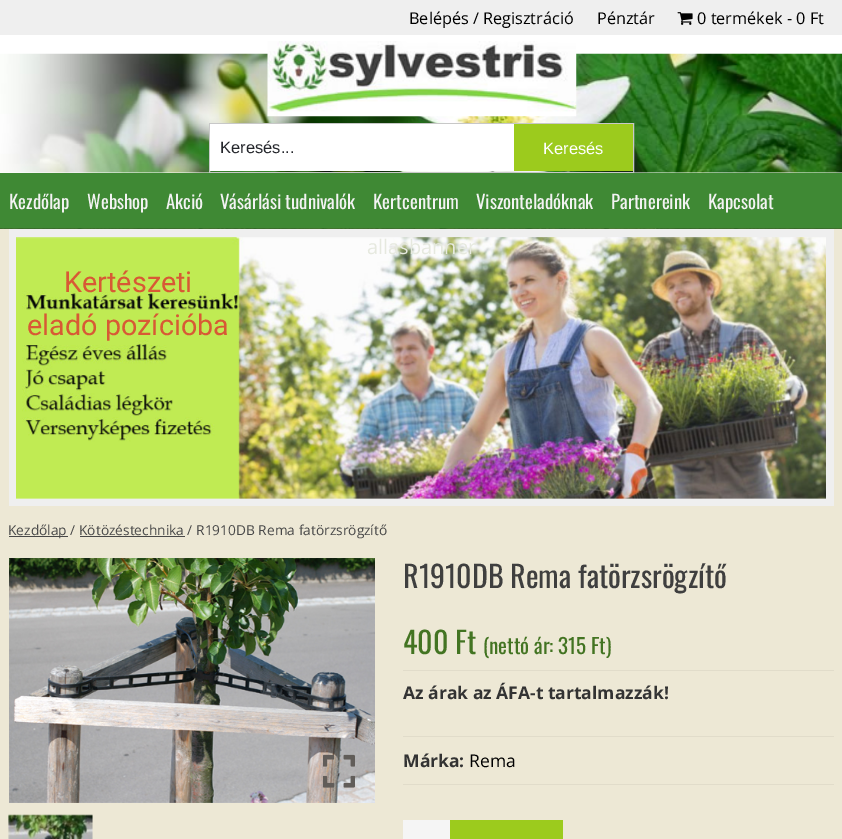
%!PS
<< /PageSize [842 839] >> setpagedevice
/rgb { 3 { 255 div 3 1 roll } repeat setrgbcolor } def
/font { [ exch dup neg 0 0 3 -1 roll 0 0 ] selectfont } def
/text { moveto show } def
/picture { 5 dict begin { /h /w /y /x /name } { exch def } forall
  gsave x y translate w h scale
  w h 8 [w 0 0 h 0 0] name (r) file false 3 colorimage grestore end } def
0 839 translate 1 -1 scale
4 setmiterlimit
255 255 255 rgb
0 0 842 839 rectfill
239 239 239 rgb
0 0 842 35 rectfill
(img_01.rgb) 677 12 16 13 picture
(img_02.rgb) 0 53 842 120 picture
(img_03.rgb) 267 41 310 76 picture
200 200 200 rgb
209.5 123.5 424 49 rectstroke
255 255 255 rgb
210 124 304 47 rectfill
156 203 29 rgb
514 124 119 47 rectfill
63 137 52 rgb
0 173 842 56 rectfill
(img_04.rgb) 0 228 842 1 picture
237 232 213 rgb
0 229 842 610 rectfill
239 239 239 rgb
9 229 825 277 rectfill
(img_05.rgb) 16 237 810 262 picture
72 72 72 rgb
9 536 59 1 rectfill
80 536 105 1 rectfill
(img_06.rgb) 9 558 366 245 picture
(img_07.rgb) 323 754 32 34 picture
(img_08.rgb) 8 814 85 25 picture
225 220 202 rgb
403 670 431 1 rectfill
403 736 431 1 rectfill
403 784 431 1 rectfill
245 245 245 rgb
403 820 47 19 rectfill
156 203 29 rgb
450 820 113 19 rectfill
/OpenSans-Regular 16.25 font
0 0 0 rgb
(Belépés / Regisztráció) 409 24 text
(Pénztár) 597 24 text
(0 termékek - 0 Ft) 697 24 text
/LiberationSans-Regular 16.5 font
36 38 43 rgb
(Keresés...) 220 153 text
255 255 255 rgb
(Keresés) 543 154 text
/Oswald-Regular 18.75 font
243 243 243 rgb
(Kezdőlap) 9 209 text
(Webshop) 87 209 text
(Akció) 166 209 text
(Vásárlási tudnivalók) 220 209 text
(Kertcentrum) 373 209 text
(Viszonteladóknak) 476 209 text
(Partnereink) 611 209 text
(Kapcsolat) 708 209 text
/OpenSans-Regular 20 font
230 233 223 rgb
(allasbanner) 367 254 text
/Roboto-Regular 28.75 font
216 89 53 rgb
(Kertészeti) 64 292 text
(eladó pozícióba) 27 335 text
/OpenSans-Regular 13.75 font
72 72 72 rgb
(Kezdőlap / Kötözéstechnika / R1910DB Rema fatörzsrögzítő) 8 535 text
/Oswald-Regular 30 font
63 63 63 rgb
(R1910DB Rema fatörzsrögzítő) 403 588 text
67 116 34 rgb
(400 Ft) 403 654 text
/Oswald-Regular 21 font
(\(nettó ár: 315 Ft\)) 483 654 text
/OpenSans-Bold 17.5 font
51 51 51 rgb
(Az árak az ÁFA-t tartalmazzák!) 403 699 text
(Márka:) 403 767 text
/OpenSans-Regular 17.5 font
0 0 0 rgb
(Rema) 469 767 text
showpage
